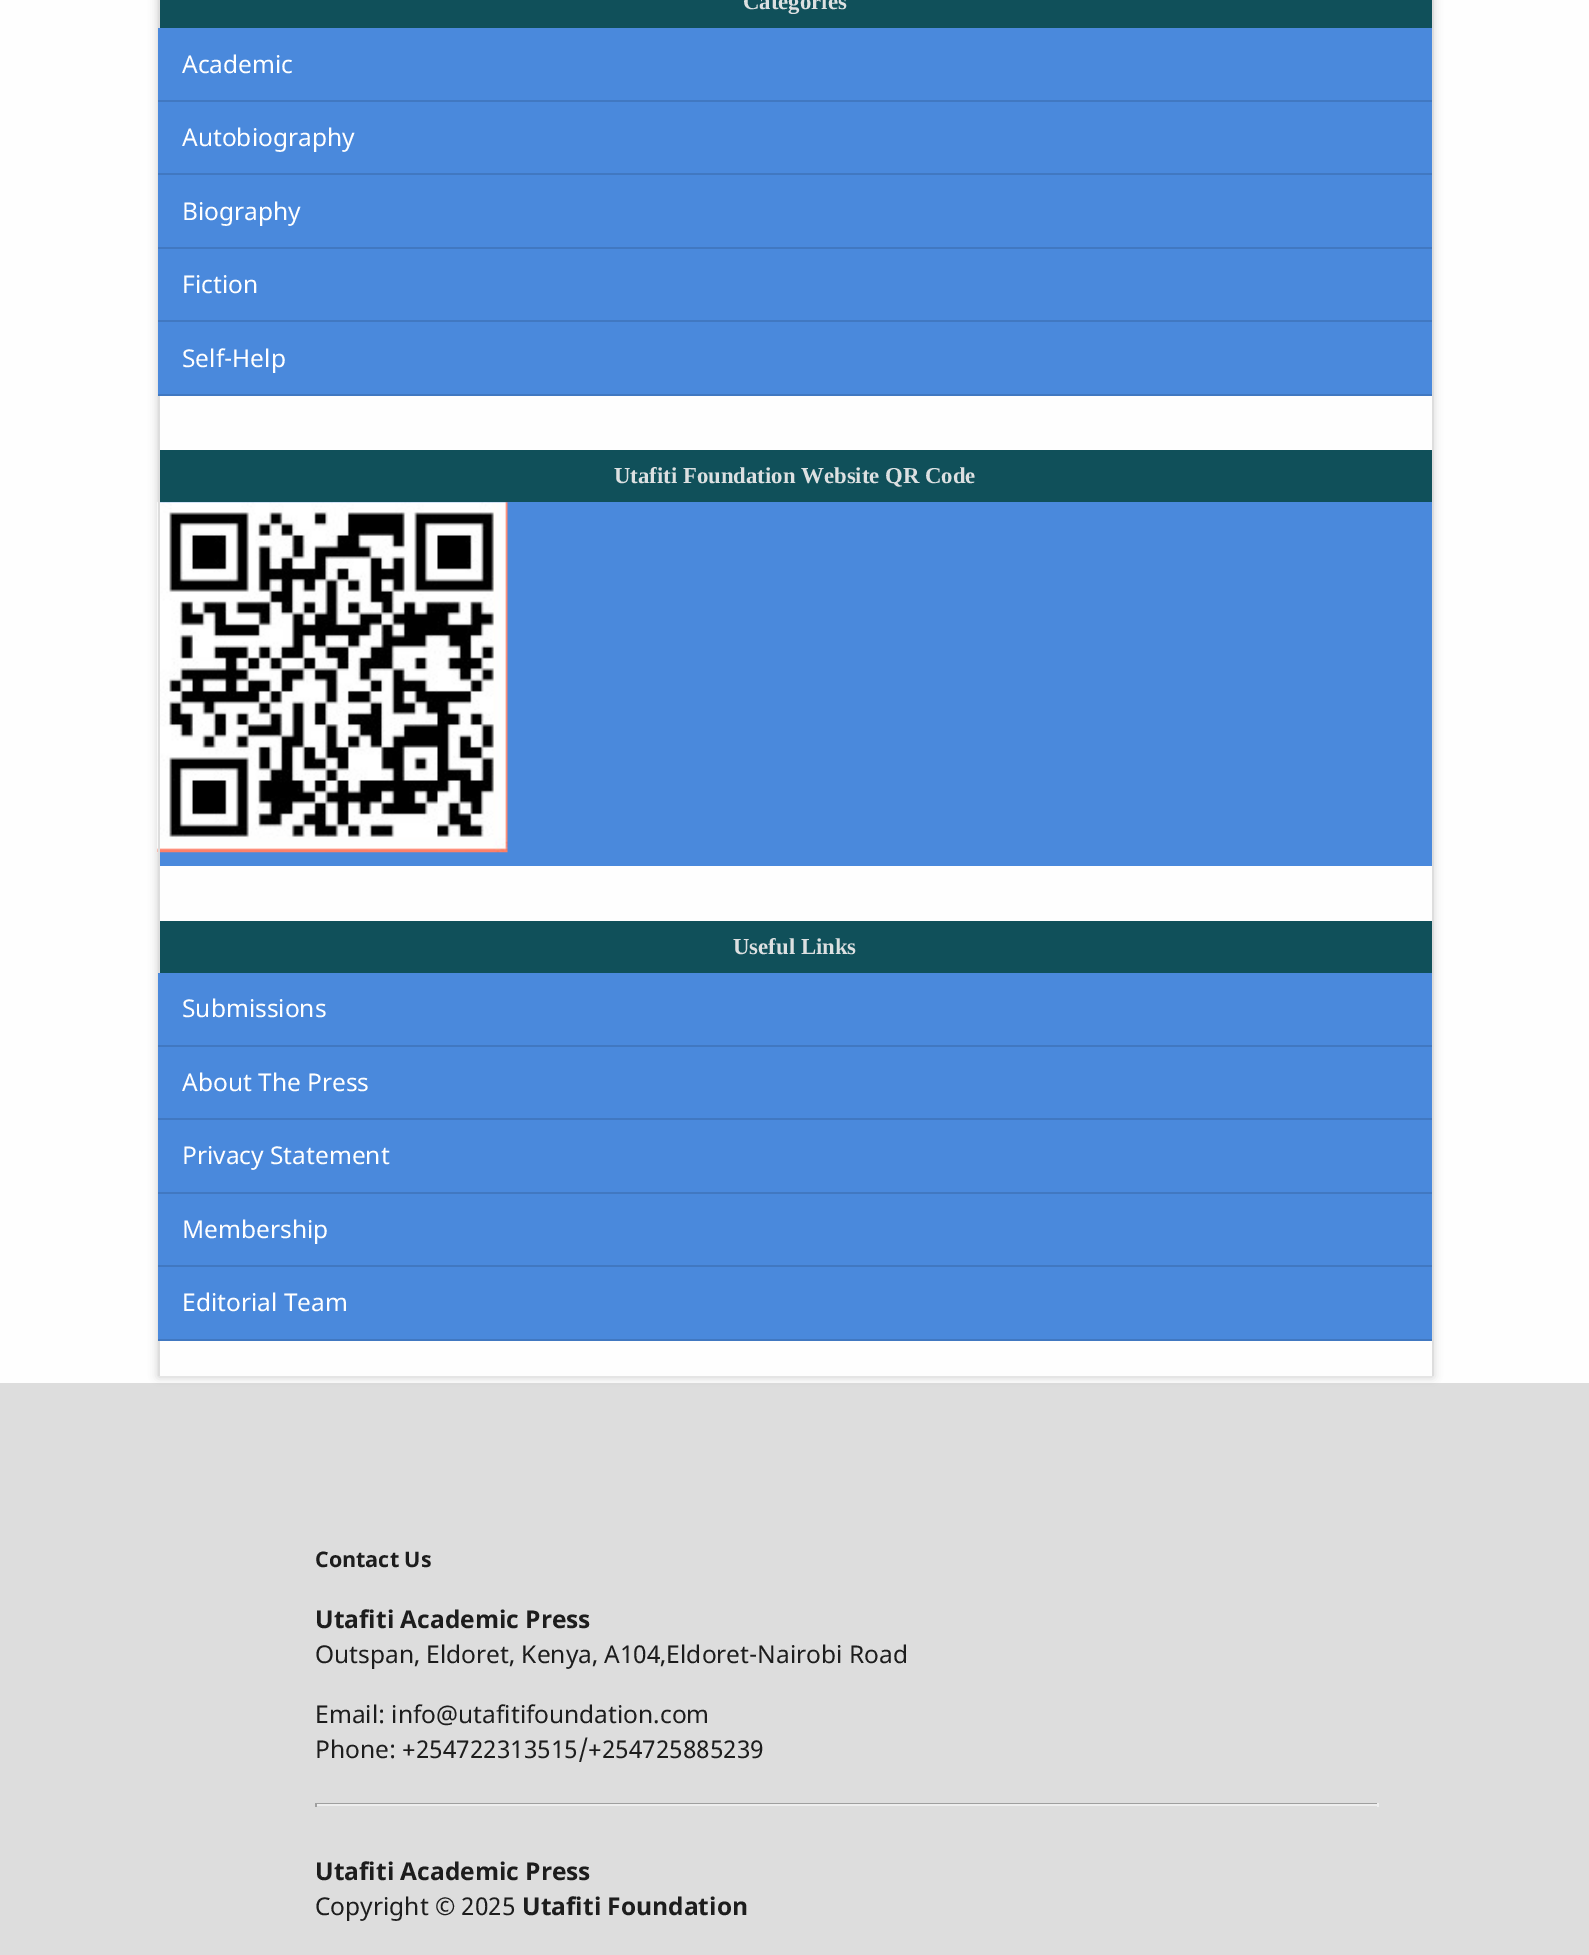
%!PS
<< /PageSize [1589 1955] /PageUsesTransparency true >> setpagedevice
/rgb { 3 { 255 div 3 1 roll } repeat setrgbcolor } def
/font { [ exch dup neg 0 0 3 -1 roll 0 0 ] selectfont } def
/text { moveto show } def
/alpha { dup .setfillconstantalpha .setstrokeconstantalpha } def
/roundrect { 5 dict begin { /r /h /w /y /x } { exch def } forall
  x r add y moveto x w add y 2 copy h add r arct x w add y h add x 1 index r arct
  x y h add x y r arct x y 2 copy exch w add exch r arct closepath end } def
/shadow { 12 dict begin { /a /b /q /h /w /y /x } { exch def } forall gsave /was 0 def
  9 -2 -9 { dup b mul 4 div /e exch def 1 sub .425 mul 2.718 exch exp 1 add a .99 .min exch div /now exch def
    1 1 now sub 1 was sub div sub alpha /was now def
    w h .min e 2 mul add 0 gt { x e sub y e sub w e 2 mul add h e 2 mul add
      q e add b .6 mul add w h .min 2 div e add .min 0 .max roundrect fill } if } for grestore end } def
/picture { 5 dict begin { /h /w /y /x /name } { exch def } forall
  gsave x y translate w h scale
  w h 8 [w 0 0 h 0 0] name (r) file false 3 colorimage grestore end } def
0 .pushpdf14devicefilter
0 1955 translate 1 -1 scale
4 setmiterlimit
254 254 254 rgb
0 0 1589 1955 rectfill
221 221 221 rgb
0 1383 1589 572 rectfill
gsave
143 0 moveto 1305 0 rlineto 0 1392 rlineto -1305 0 rlineto closepath 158 -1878 moveto 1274 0 rlineto 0 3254 rlineto -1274 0 rlineto closepath eoclip newpath
103 104 107 rgb
158 -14 1275 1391 0 4.5 0.34 shadow
grestore
74 137 220 rgb
160 502 1272 364 rectfill
(img_01.rgb) 157 502 351 351 picture
221 221 221 rgb
158 0 2 1376 rectfill
1432 0 2 1376 rectfill
16 80 90 rgb
160 0 1272 28 rectfill
74 137 220 rgb
158 28 1274 72 rectfill
65 120 193 rgb
158 100 1274 2 rectfill
74 137 220 rgb
158 102 1274 71 rectfill
65 120 193 rgb
158 173 1274 2 rectfill
74 137 220 rgb
158 175 1274 72 rectfill
65 120 193 rgb
158 247 1274 2 rectfill
74 137 220 rgb
158 249 1274 71 rectfill
65 120 193 rgb
158 320 1274 2 rectfill
74 137 220 rgb
158 322 1274 72 rectfill
65 120 193 rgb
158 394 1274 2 rectfill
16 80 90 rgb
160 450 1272 52 rectfill
160 921 1272 52 rectfill
74 137 220 rgb
158 973 1274 72 rectfill
65 120 193 rgb
158 1045 1274 2 rectfill
74 137 220 rgb
158 1047 1274 71 rectfill
65 120 193 rgb
158 1118 1274 2 rectfill
74 137 220 rgb
158 1120 1274 72 rectfill
65 120 193 rgb
158 1192 1274 2 rectfill
74 137 220 rgb
158 1194 1274 71 rectfill
65 120 193 rgb
158 1265 1274 2 rectfill
74 137 220 rgb
158 1267 1274 72 rectfill
65 120 193 rgb
158 1339 1274 2 rectfill
159 159 159 rgb
315 1803 1064 1 rectfill
238 238 238 rgb
1377 1803 2 4 rectfill
315 1804 1064 2 rectfill
159 159 159 rgb
315 1803 2 4 rectfill
/LiberationSerif-Bold 22.75 font
220 224 225 rgb
(Categories) 743 9 text
/NotoSans-Regular 24.5 font
255 255 255 rgb
(Academic) 182 73 text
(Autobiography) 182 146 text
(Biography) 182 220 text
(Fiction) 182 293 text
(Self-Help) 182 367 text
/LiberationSerif-Bold 22.75 font
220 224 225 rgb
(Utafiti Foundation Website QR Code) 614 483 text
(Useful Links) 733 954 text
/NotoSans-Regular 24.5 font
255 255 255 rgb
(Submissions) 182 1017 text
(About The Press) 182 1091 text
(Privacy Statement) 182 1164 text
(Membership) 182 1238 text
(Editorial Team) 182 1311 text
/NotoSans-Bold 21.5 font
29 29 29 rgb
(Contact Us) 315 1567 text
/NotoSans-Bold 24.5 font
(Utafiti Academic Press) 315 1628 text
/NotoSans-Regular 24.5 font
(Outspan, Eldoret, Kenya, A104,Eldoret-Nairobi Road) 315 1663 text
(Email: info@utafitifoundation.com) 315 1723 text
(Phone: +254722313515/+254725885239) 315 1758 text
/NotoSans-Bold 24.5 font
(Utafiti Academic Press) 315 1880 text
/NotoSans-Regular 24.5 font
(Copyright © 2025) 315 1915 text
/NotoSans-Bold 24.5 font
(Utafiti Foundation) 522 1915 text
.poppdf14devicefilter showpage
